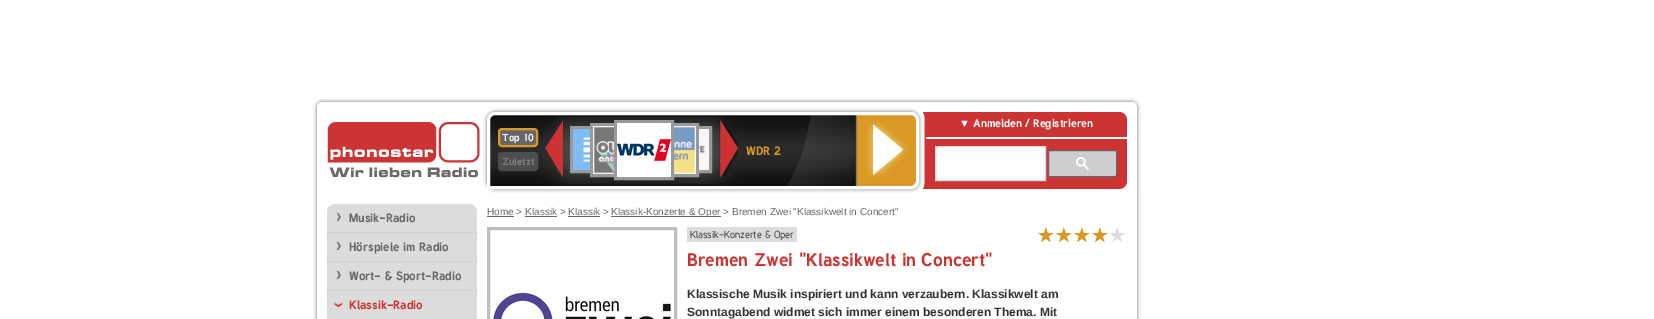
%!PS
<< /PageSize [1654 319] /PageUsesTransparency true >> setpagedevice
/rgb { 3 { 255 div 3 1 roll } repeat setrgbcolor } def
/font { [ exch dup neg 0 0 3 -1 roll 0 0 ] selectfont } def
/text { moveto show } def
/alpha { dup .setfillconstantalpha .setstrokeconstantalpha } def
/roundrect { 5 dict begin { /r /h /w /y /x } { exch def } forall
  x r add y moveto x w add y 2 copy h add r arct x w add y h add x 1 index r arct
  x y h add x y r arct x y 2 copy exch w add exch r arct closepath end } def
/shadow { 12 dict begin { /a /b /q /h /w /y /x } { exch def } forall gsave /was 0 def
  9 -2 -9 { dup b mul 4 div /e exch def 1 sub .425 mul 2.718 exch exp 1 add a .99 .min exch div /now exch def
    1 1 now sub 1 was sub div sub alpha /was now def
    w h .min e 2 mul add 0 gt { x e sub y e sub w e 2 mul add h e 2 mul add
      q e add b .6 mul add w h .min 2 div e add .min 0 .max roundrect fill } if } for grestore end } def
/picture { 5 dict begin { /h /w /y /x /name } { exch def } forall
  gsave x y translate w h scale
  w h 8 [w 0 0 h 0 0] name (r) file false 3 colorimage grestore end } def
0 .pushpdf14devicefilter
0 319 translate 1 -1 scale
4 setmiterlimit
255 255 255 rgb
0 0 1654 319 rectfill
102 102 102 rgb
317 102 820 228 5 2 1 shadow
255 255 255 rgb
317 102 820 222 5 roundrect fill
(img_01.rgb) 327 122 153 56 picture
102 102 102 rgb
487 112 432 77 8 2 1 shadow
(img_02.rgb) 490 112 426 74 picture
255 255 255 rgb
3 setlinewidth
495 113.5 moveto 416 0 rlineto 3.5 0 6.5 3 6.5 6.5 rcurveto 0 61 rlineto 0 3.5 -3 6.5 -6.5 6.5 rcurveto -422.5 0 rlineto 0 -67.5 rlineto 0 -3.5 3 -6.5 6.5 -6.5 rcurveto closepath stroke
102 102 102 rgb
499 129 38 17 3 roundrect gsave fill grestore
218 153 37 rgb
2 setlinewidth
stroke
77 77 77 rgb
499 153 38 17 3 roundrect gsave fill grestore
stroke
(img_03.rgb) 545 120 18 58 picture
153 153 153 rgb
3 setlinewidth
571.5 127.5 44 44 rectstroke
591.5 124.5 51 51 rectstroke
666.5 127.5 44 44 rectstroke
646.5 124.5 51 51 rectstroke
615.5 121.5 57 57 rectstroke
255 255 255 rgb
617 123 54 54 rectfill
(img_04.rgb) 617 139 54 22 picture
238 238 238 rgb
593 126 21 48 rectfill
(img_05.rgb) 593 126 21 48 picture
674 126 22 48 rectfill
(img_06.rgb) 674 126 22 48 picture
573 129 17 41 rectfill
(img_07.rgb) 573 129 17 41 picture
699 129 10 41 rectfill
(img_08.rgb) 699 129 10 41 picture
(img_09.rgb) 720 120 18 58 picture
204 51 51 rgb
925 112 moveto 194 0 rlineto 4.5 0 8 3.5 8 8 rcurveto 0 61 rlineto 0 4.5 -3.5 8 -8 8 rcurveto -194 0 rlineto closepath fill
255 255 255 rgb
925 137 202 2 rectfill
(img_10.rgb) 923 112 3 77 picture
935.5 146.5 moveto 110 0 rlineto 0 34 rlineto -110 0 rlineto closepath gsave fill grestore
217 217 217 rgb
1 setlinewidth
stroke
206 206 206 rgb
1048.5 150.5 68 26 1.5 roundrect gsave fill grestore
102 102 102 rgb
stroke
(img_11.rgb) 1076 157 13 13 picture
220 220 220 rgb
335 204 moveto 134 0 rlineto 4.5 0 8 3.5 8 8 rcurveto 0 107 rlineto 0 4.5 -3.5 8 -8 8 rcurveto -142 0 rlineto 0 -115 rlineto 0 -4.5 3.5 -8 8 -8 rcurveto closepath fill
211 211 211 rgb
327 232 150 1 rectfill
(img_12.rgb) 336 213 5 8 picture
327 261 150 1 rectfill
(img_12.rgb) 336 242 5 8 picture
327 290 150 1 rectfill
(img_12.rgb) 336 271 5 8 picture
(img_13.rgb) 334 302 9 6 picture
102 102 102 rgb
487 216 27 1 rectfill
611 216 110 1 rectfill
525 216 32 1 rectfill
568 216 32 1 rectfill
188 190 192 rgb
3 setlinewidth
488.5 228.5 187 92 rectstroke
(img_14.rgb) 493 292 178 27 picture
220 220 220 rgb
687 227 110 15 rectfill
(img_15.rgb) 1038 227 16 15 picture
(img_15.rgb) 1056 227 16 15 picture
(img_15.rgb) 1074 227 16 15 picture
(img_15.rgb) 1092 227 16 15 picture
(img_16.rgb) 1109 227 16 15 picture
/Tuffy-Bold 10 font
255 255 255 rgb
(Top 10) 502 141 text
128 128 128 rgb
(Zuletzt) 502 165 text
/Tuffy-Bold 12 font
218 153 37 rgb
(WDR 2) 746 155 text
/LiberationSans-Regular 11 font
255 255 255 rgb
(▼) 959 127 text
/Tuffy-Bold 11 font
(Anmelden / Registrieren) 973 127 text
/Tuffy-Bold 12 font
102 102 102 rgb
(Musik-Radio) 349 222 text
(Hörspiele im Radio) 349 251 text
(Wort- & Sport-Radio) 349 280 text
204 51 51 rgb
(Klassik-Radio) 349 309 text
/LiberationSans-Regular 10 font
102 102 102 rgb
(Home > Klassik > Klassik >) 487 215 text
(Klassik-Konzerte & Oper > Bremen Zwei "Klassikwelt in Concert") 611 215 text
/Tuffy-Regular 10 font
51 51 51 rgb
(Klassik-Konzerte & Oper) 690 238 text
/Tuffy-Bold 18 font
204 51 51 rgb
(Bremen Zwei "Klassikwelt in Concert") 687 266 text
/LiberationSans-Bold 12 font
51 51 51 rgb
(Klassische Musik inspiriert und kann verzaubern. Klassikwelt am) 687 298 text
(Sonntagabend widmet sich immer einem besonderen Thema. Mit) 687 316 text
.poppdf14devicefilter showpage
